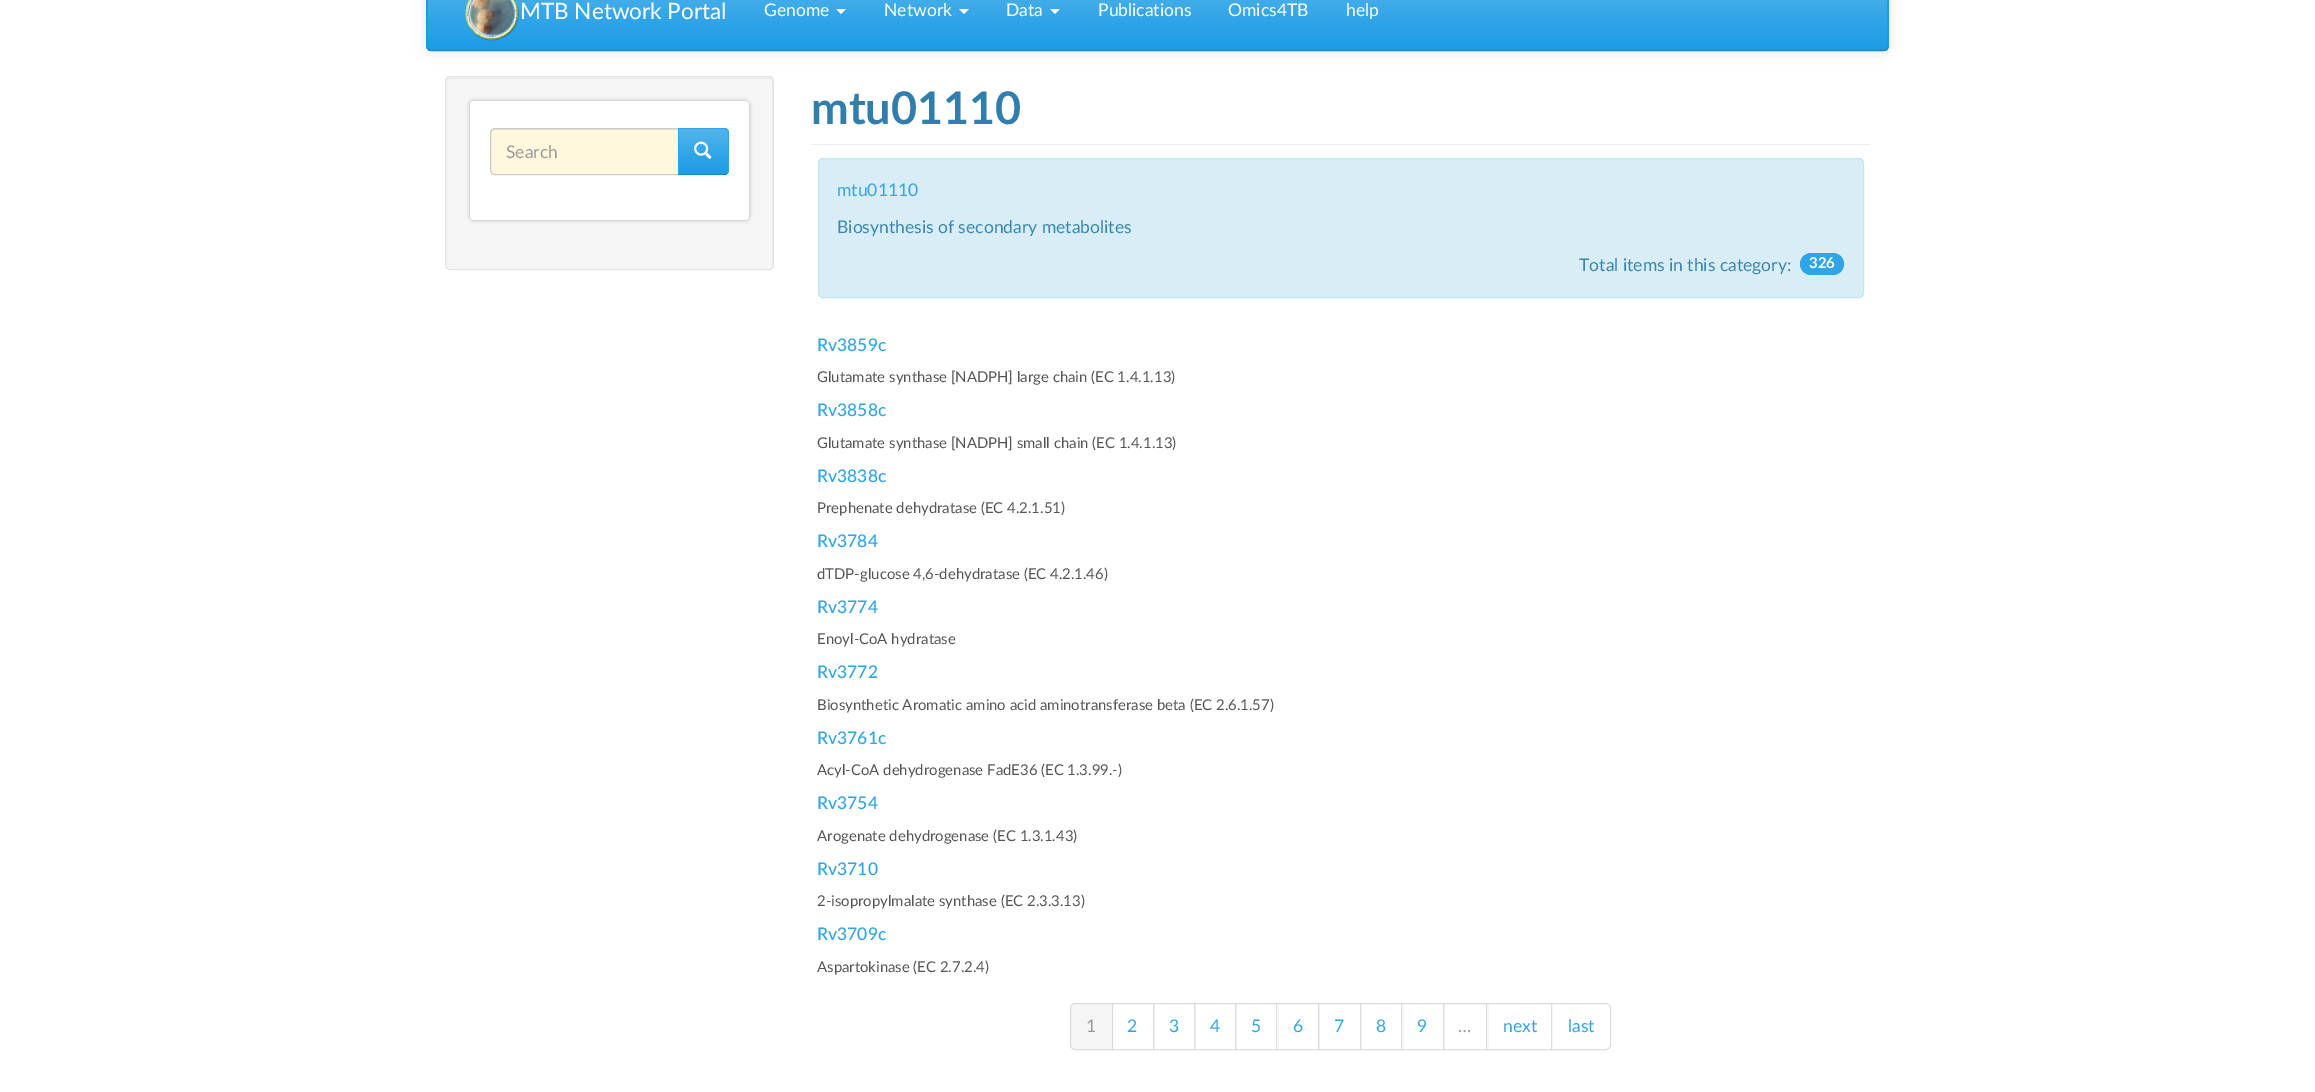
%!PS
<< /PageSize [2315 1092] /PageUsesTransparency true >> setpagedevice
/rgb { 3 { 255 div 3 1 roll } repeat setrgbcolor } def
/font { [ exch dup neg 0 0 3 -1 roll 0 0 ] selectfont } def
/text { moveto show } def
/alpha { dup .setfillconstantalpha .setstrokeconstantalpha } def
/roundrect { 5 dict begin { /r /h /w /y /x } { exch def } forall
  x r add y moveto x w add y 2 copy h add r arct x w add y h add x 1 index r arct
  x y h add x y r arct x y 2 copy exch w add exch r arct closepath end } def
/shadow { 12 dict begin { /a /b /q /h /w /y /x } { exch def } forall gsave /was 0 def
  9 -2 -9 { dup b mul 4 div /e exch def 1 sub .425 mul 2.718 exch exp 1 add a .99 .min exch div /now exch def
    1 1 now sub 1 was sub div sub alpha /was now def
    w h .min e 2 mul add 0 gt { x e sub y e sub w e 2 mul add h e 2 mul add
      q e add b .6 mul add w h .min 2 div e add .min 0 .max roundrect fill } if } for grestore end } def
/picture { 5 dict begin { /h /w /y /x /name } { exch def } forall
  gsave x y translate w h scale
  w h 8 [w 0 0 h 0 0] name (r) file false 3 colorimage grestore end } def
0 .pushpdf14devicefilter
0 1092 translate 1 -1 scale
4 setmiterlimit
255 255 255 rgb
0 0 2315 1092 rectfill
0 0 0 rgb
426 -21 1463 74 5 6 0.1 shadow
47 164 231 rgb
426 -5 1463 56 5 roundrect fill
gsave 428 0 moveto 1460 0 rlineto 0 50 rlineto -1460 0 rlineto closepath clip newpath
<< /ShadingType 2 /ColorSpace /DeviceRGB /Coords [1158 -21 1158 50] /Extend [true true] /Function << /FunctionType 3 /Domain [0 1] /Functions [<< /FunctionType 2 /Domain [0 1] /C0 [0.329 0.706 0.922] /C1 [0.184 0.643 0.906] /N 1 >> << /FunctionType 2 /Domain [0 1] /C0 [0.184 0.643 0.906] /C1 [0.114 0.612 0.898] /N 1 >>] /Bounds [0.6] /Encode [0 1 0 1] >> >> shfill grestore
23 138 204 rgb
1.2 setlinewidth
1887 49.5 moveto -3 1 rlineto -1453 0 rlineto -3 -1 rlineto stroke
25 149 220 rgb
428 49.5 moveto -1 -3 rlineto 0 -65 rlineto 1.5 -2.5 rlineto 2.5 -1 rlineto 1453 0 rlineto 2.5 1 rlineto 1.5 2.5 rlineto 0 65 rlineto -1 3 rlineto stroke
(img_01.rgb) 465 0 54 41 picture
255 255 255 rgb
836 9 moveto 10 0 rlineto -5 5 rlineto closepath fill
959 9 moveto 10 0 rlineto -5 5 rlineto closepath fill
1050 9 moveto 10 0 rlineto -5 5 rlineto closepath fill
245 245 245 rgb
445 76 329 194 5 roundrect fill
233 233 233 rgb
450 79 moveto 319 0 rlineto 2 0 3 1 3 3 rcurveto 0 184 rlineto 0 2 rlineto 0 -1 1 -2 1 -3 rcurveto 0 -183 rlineto 0 -2 -2 -4 -4 -4 rcurveto -319 0 rlineto -2 0 -4 2 -4 4 rcurveto 0 -2 2 -3 4 -3 rcurveto closepath fill
227 227 227 rgb
1 setlinewidth
445.5 76.5 328 193 4.5 roundrect stroke
0 0 0 rgb
470 101 279 119 4 2 0.3 shadow
255 255 255 rgb
470 101 279 119 4 roundrect fill
255 248 220 rgb
495 128 moveto 184 0 rlineto 0 47 rlineto -184 0 rlineto -3 0 -5 -2 -5 -5 rcurveto 0 -37 rlineto 0 -3 2 -5 5 -5 rcurveto closepath fill
236 229 204 rgb
495 130 moveto 183 0 rlineto 0 -1 rlineto -184 0 rlineto -2 1 -3 3 -3 5 rcurveto 0 -2 2 -4 4 -4 rcurveto closepath fill
204 204 204 rgb
495 128.5 moveto 183.5 0 rlineto 0 46 rlineto -183.5 0 rlineto -2.5 0 -4.5 -2 -4.5 -4.5 rcurveto 0 -37 rlineto 0 -2.5 2 -4.5 4.5 -4.5 rcurveto closepath stroke
47 164 231 rgb
678 128 moveto 46 0 rlineto 3 0 5 2 5 5 rcurveto 0 37 rlineto 0 3 -2 5 -5 5 rcurveto -46 0 rlineto closepath fill
gsave 679 129 moveto 49 0 rlineto 0 45 rlineto -49 0 rlineto closepath clip newpath
<< /ShadingType 2 /ColorSpace /DeviceRGB /Coords [703 129 703 174] /Extend [true true] /Function << /FunctionType 3 /Domain [0 1] /Functions [<< /FunctionType 2 /Domain [0 1] /C0 [0.329 0.706 0.922] /C1 [0.184 0.643 0.906] /N 1 >> << /FunctionType 2 /Domain [0 1] /C0 [0.184 0.643 0.906] /C1 [0.114 0.612 0.898] /N 1 >>] /Bounds [0.6] /Encode [0 1 0 1] >> >> shfill grestore
678 128 moveto 1 1 rlineto 45 0 rlineto 3 1 rlineto 0 -1 rlineto -3 -1 rlineto closepath 727 129 moveto 2 2 rlineto 0 41 rlineto -2 2 rlineto 0 -1 rlineto 1 -3 rlineto 0 -39 rlineto -1 -1 rlineto closepath fill
23 138 204 rgb
678 175 moveto 46 0 rlineto 1 0 3 0 3 -1 rcurveto 0 -1 rlineto -1 1 -2 1 -3 1 rcurveto -45 0 rlineto closepath fill
(img_02.rgb) 694 141 18 18 picture
238 238 238 rgb
811 144 1059 1 rectfill
217 237 247 rgb
818.5 158.5 1045 139 4.5 roundrect gsave fill grestore
188 232 241 rgb
stroke
47 164 231 rgb
1800 253 44 22 11 roundrect fill
221 221 221 rgb
1111.5 1003.5 42 46 rectstroke
245 245 245 rgb
1075 1003.5 moveto 37.5 0 rlineto 0 46 rlineto -37.5 0 rlineto -2.5 0 -4.5 -2 -4.5 -4.5 rcurveto 0 -37 rlineto 0 -2.5 2 -4.5 4.5 -4.5 rcurveto closepath gsave fill grestore
221 221 221 rgb
stroke
1153.5 1003.5 41 46 rectstroke
1194.5 1003.5 41 46 rectstroke
1235.5 1003.5 42 46 rectstroke
255 255 255 rgb
1277 1004 1 45 rectfill
221 221 221 rgb
1276.5 1003.5 42 46 rectstroke
1318.5 1003.5 42 46 rectstroke
1360.5 1003.5 42 46 rectstroke
255 255 255 rgb
1402 1004 1 45 rectfill
221 221 221 rgb
1401.5 1003.5 42 46 rectstroke
1443.5 1003.5 44 46 rectstroke
255 255 255 rgb
1487 1004 1 45 rectfill
221 221 221 rgb
1486.5 1003.5 66 46 rectstroke
255 255 255 rgb
1551.5 1003.5 moveto 54.5 0 rlineto 2.5 0 4.5 2 4.5 4.5 rcurveto 0 37 rlineto 0 2.5 -2 4.5 -4.5 4.5 rcurveto -54.5 0 rlineto closepath gsave fill grestore
221 221 221 rgb
stroke
/Lato-Regular 22.5 font
255 255 255 rgb
(MTB Network Portal) 520 19 text
/Lato-Regular 17.5 font
(Genome) 764 16 text
(Network) 884 16 text
(Data) 1006 16 text
(Publications) 1098 16 text
(Omics4TB) 1228 16 text
(help) 1346 16 text
153 153 153 rgb
(Search) 506 158 text
/Lato-Bold 45 font
49 126 172 rgb
(mtu01110) 811 124 text
/Lato-Regular 17.5 font
47 164 231 rgb
(mtu01110) 837 196 text
58 135 173 rgb
(Biosynthesis of secondary metabolites) 837 233 text
(Total items in this category:) 1579 271 text
/Lato-Bold 15 font
255 255 255 rgb
(326) 1809 268 text
/Lato-Medium 17.5 font
47 164 231 rgb
(Rv3859c) 817 351 text
/Lato-Regular 14.9 font
85 85 85 rgb
(Glutamate synthase [NADPH] large chain \(EC 1.4.1.13\)) 817 382 text
/Lato-Medium 17.5 font
47 164 231 rgb
(Rv3858c) 817 416 text
/Lato-Regular 14.9 font
85 85 85 rgb
(Glutamate synthase [NADPH] small chain \(EC 1.4.1.13\)) 817 448 text
/Lato-Medium 17.5 font
47 164 231 rgb
(Rv3838c) 817 482 text
/Lato-Regular 14.9 font
85 85 85 rgb
(Prephenate dehydratase \(EC 4.2.1.51\)) 817 513 text
/Lato-Medium 17.5 font
47 164 231 rgb
(Rv3784) 817 547 text
/Lato-Regular 14.9 font
85 85 85 rgb
(dTDP-glucose 4,6-dehydratase \(EC 4.2.1.46\)) 817 579 text
/Lato-Medium 17.5 font
47 164 231 rgb
(Rv3774) 817 613 text
/Lato-Regular 14.9 font
85 85 85 rgb
(Enoyl-CoA hydratase) 817 644 text
/Lato-Medium 17.5 font
47 164 231 rgb
(Rv3772) 817 678 text
/Lato-Regular 14.9 font
85 85 85 rgb
(Biosynthetic Aromatic amino acid aminotransferase beta \(EC 2.6.1.57\)) 817 710 text
/Lato-Medium 17.5 font
47 164 231 rgb
(Rv3761c) 817 744 text
/Lato-Regular 14.9 font
85 85 85 rgb
(Acyl-CoA dehydrogenase FadE36 \(EC 1.3.99.-\)) 817 775 text
/Lato-Medium 17.5 font
47 164 231 rgb
(Rv3754) 817 809 text
/Lato-Regular 14.9 font
85 85 85 rgb
(Arogenate dehydrogenase \(EC 1.3.1.43\)) 817 841 text
/Lato-Medium 17.5 font
47 164 231 rgb
(Rv3710) 817 875 text
/Lato-Regular 14.9 font
85 85 85 rgb
(2-isopropylmalate synthase \(EC 2.3.3.13\)) 817 906 text
/Lato-Medium 17.5 font
47 164 231 rgb
(Rv3709c) 817 940 text
/Lato-Regular 14.9 font
85 85 85 rgb
(Aspartokinase \(EC 2.7.2.4\)) 817 972 text
/Lato-Regular 17.5 font
153 153 153 rgb
(1) 1086 1032 text
47 164 231 rgb
(2) 1127 1032 text
(3) 1169 1032 text
(4) 1210 1032 text
(5) 1251 1032 text
(6) 1293 1032 text
(7) 1334 1032 text
(8) 1376 1032 text
(9) 1417 1032 text
153 153 153 rgb
(…) 1458 1032 text
47 164 231 rgb
(next) 1503 1032 text
(last) 1568 1032 text
.poppdf14devicefilter showpage
